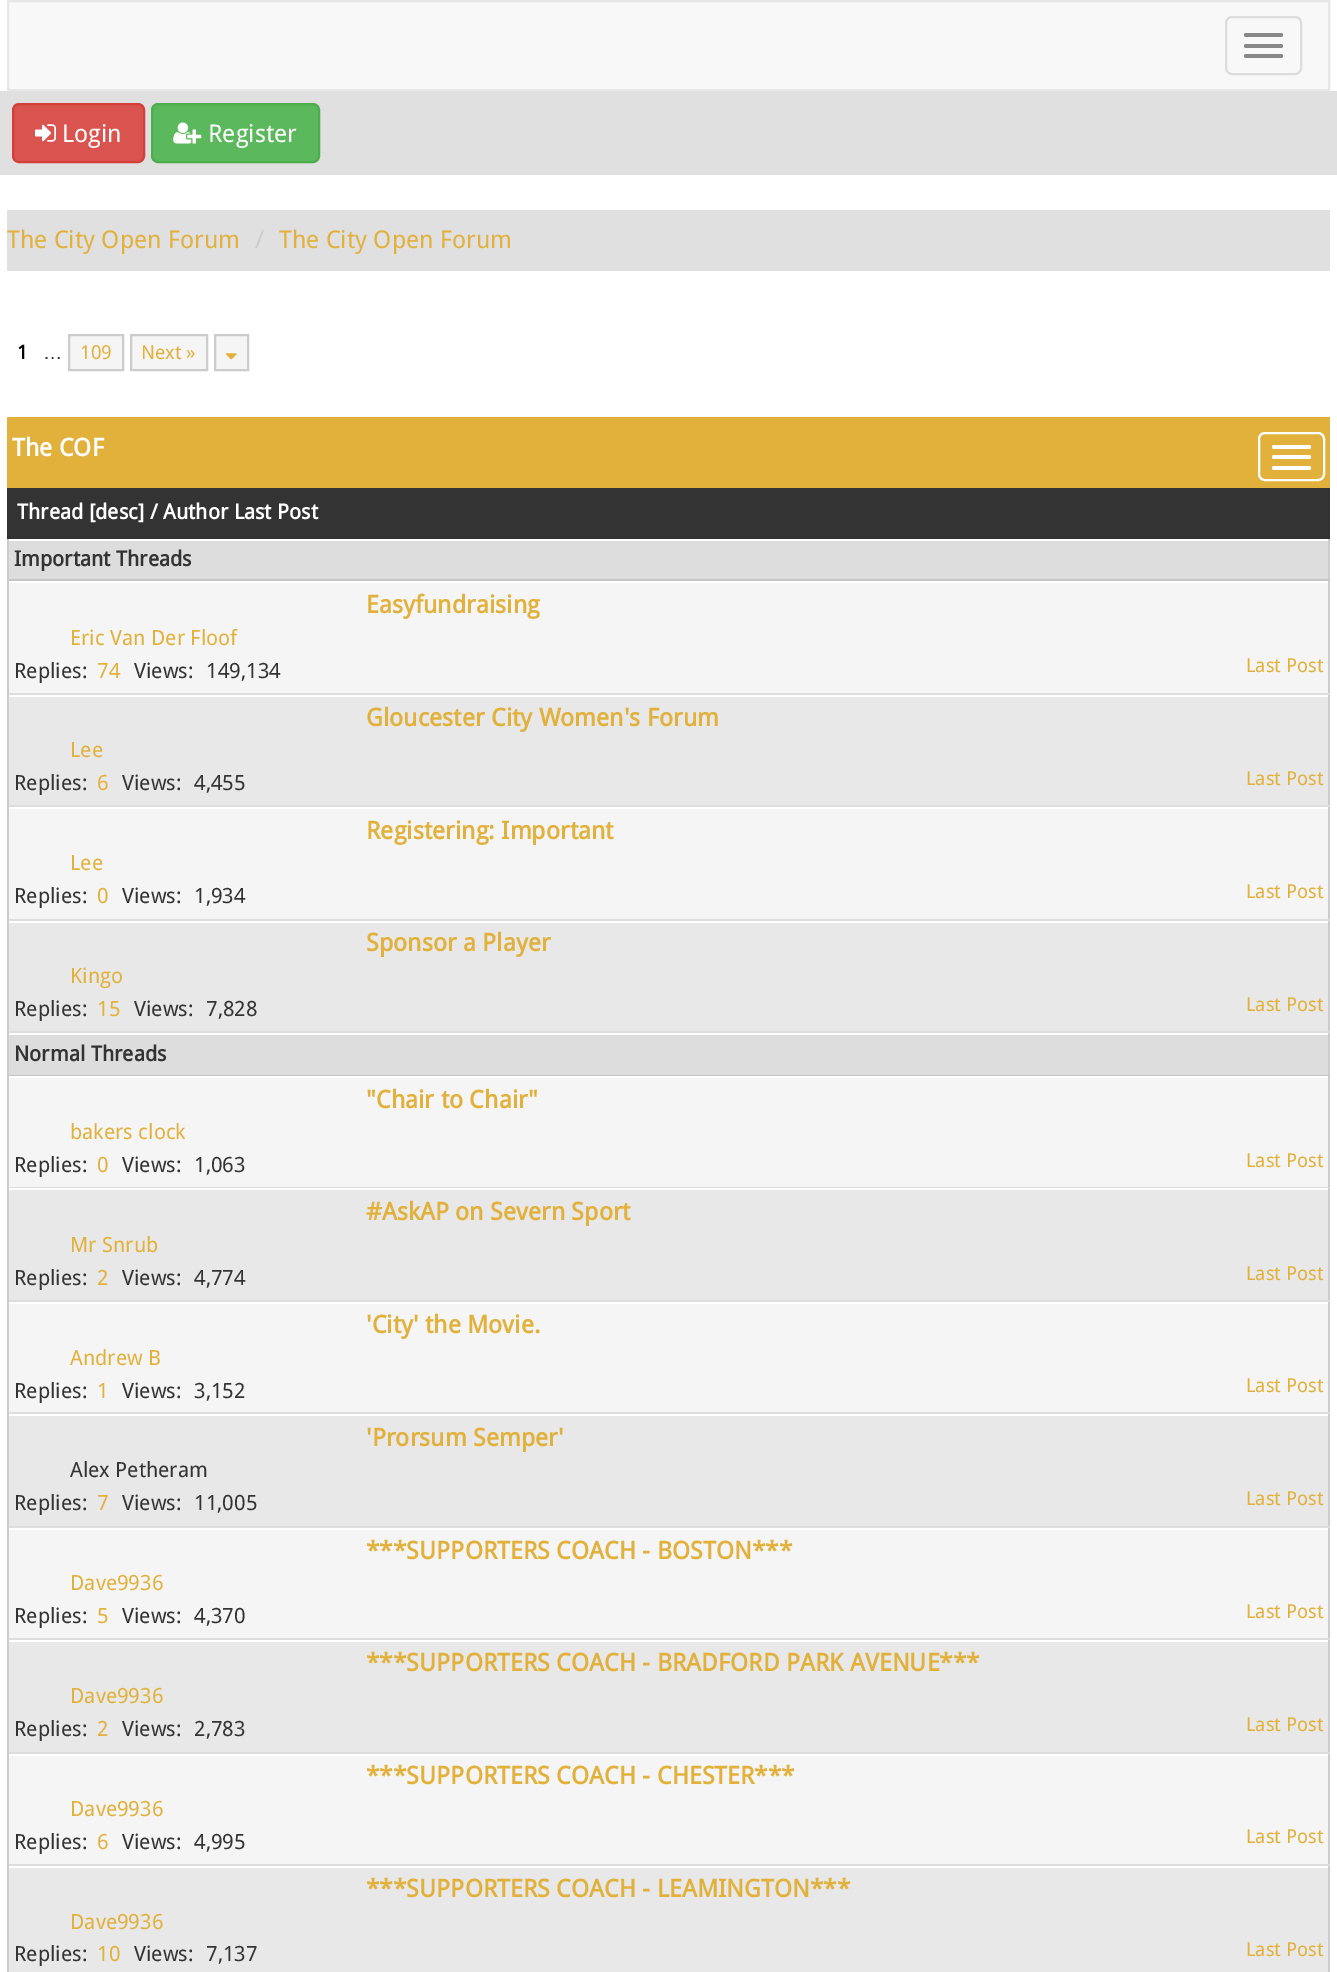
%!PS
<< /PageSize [1337 1972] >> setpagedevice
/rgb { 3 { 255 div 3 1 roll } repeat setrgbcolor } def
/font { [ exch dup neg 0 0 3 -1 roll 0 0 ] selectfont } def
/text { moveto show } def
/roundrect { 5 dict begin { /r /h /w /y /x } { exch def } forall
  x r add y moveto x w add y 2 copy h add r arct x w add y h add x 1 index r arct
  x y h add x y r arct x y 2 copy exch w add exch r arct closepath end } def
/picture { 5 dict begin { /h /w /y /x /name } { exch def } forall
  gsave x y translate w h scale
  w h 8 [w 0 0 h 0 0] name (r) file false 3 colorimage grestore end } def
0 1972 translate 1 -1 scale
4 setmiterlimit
255 255 255 rgb
0 0 1337 1972 rectfill
248 248 248 rgb
8 1 moveto 1321 0 rlineto 0 89 rlineto -1321 0 rlineto closepath gsave fill grestore
231 231 231 rgb
2 setlinewidth
stroke
221 221 221 rgb
1226 17 75 57 6 roundrect stroke
136 136 136 rgb
1244 33 39 4 2 roundrect fill
1244 44 39 4 2 roundrect fill
1244 54 39 4 2 roundrect fill
224 224 224 rgb
0 91 1337 84 rectfill
217 83 79 rgb
13 104 131 58 6 roundrect gsave fill grestore
212 63 58 rgb
stroke
(img_01.rgb) 35 124 21 18 picture
92 184 92 rgb
152 104 167 58 6 roundrect gsave fill grestore
76 174 76 rgb
stroke
(img_02.rgb) 173 122 29 22 picture
224 224 224 rgb
7 210 1323 61 rectfill
245 245 245 rgb
69 335 moveto 54 0 rlineto 0 35 rlineto -54 0 rlineto closepath gsave fill grestore
204 204 204 rgb
stroke
245 245 245 rgb
131 335 moveto 76 0 rlineto 0 35 rlineto -76 0 rlineto closepath gsave fill grestore
204 204 204 rgb
stroke
245 245 245 rgb
215 335 moveto 33 0 rlineto 0 35 rlineto -33 0 rlineto closepath gsave fill grestore
204 204 204 rgb
stroke
(img_03.rgb) 225 353 12 7 picture
226 177 60 rgb
7 417 1323 71 rectfill
255 255 255 rgb
1259 433 65 47 6 roundrect stroke
1272 445 39 4 2 roundrect fill
1272 455 39 4 2 roundrect fill
1272 466 39 4 2 roundrect fill
51 51 51 rgb
7 488 1323 51 rectfill
221 221 221 rgb
9 541 1319 38 rectfill
204 204 204 rgb
1328 539 2 1433 rectfill
197 197 197 rgb
7 579 1323 2 rectfill
204 204 204 rgb
7 539 2 42 rectfill
245 245 245 rgb
9 583 1319 110 rectfill
221 221 221 rgb
7 693 1323 2 rectfill
204 204 204 rgb
7 581 2 114 rectfill
232 232 232 rgb
9 697 1319 108 rectfill
221 221 221 rgb
7 805 1323 2 rectfill
204 204 204 rgb
7 695 2 112 rectfill
245 245 245 rgb
9 809 1319 110 rectfill
221 221 221 rgb
7 919 1323 2 rectfill
204 204 204 rgb
7 807 2 114 rectfill
232 232 232 rgb
9 923 1319 108 rectfill
221 221 221 rgb
7 1031 1323 2 rectfill
204 204 204 rgb
7 921 2 112 rectfill
221 221 221 rgb
9 1035 1319 40 rectfill
197 197 197 rgb
7 1075 1323 1 rectfill
204 204 204 rgb
7 1033 2 43 rectfill
245 245 245 rgb
9 1078 1319 109 rectfill
221 221 221 rgb
7 1187 1323 1 rectfill
204 204 204 rgb
7 1076 2 112 rectfill
232 232 232 rgb
9 1190 1319 110 rectfill
221 221 221 rgb
7 1300 1323 2 rectfill
204 204 204 rgb
7 1188 2 114 rectfill
245 245 245 rgb
9 1304 1319 108 rectfill
221 221 221 rgb
7 1412 1323 2 rectfill
204 204 204 rgb
7 1302 2 112 rectfill
232 232 232 rgb
9 1416 1319 110 rectfill
221 221 221 rgb
7 1526 1323 2 rectfill
204 204 204 rgb
7 1414 2 114 rectfill
245 245 245 rgb
9 1530 1319 108 rectfill
221 221 221 rgb
7 1638 1323 2 rectfill
204 204 204 rgb
7 1528 2 112 rectfill
232 232 232 rgb
9 1642 1319 110 rectfill
221 221 221 rgb
7 1752 1323 2 rectfill
204 204 204 rgb
7 1640 2 114 rectfill
245 245 245 rgb
9 1756 1319 108 rectfill
221 221 221 rgb
7 1864 1323 2 rectfill
204 204 204 rgb
7 1754 2 218 rectfill
232 232 232 rgb
9 1868 1319 104 rectfill
/DroidSans-Regular 24.5 font
255 255 255 rgb
(Login) 62 142 text
(Register) 208 142 text
226 177 60 rgb
(The City Open Forum) 7 248 text
204 204 204 rgb
(/) 255 248 text
226 177 60 rgb
(The City Open Forum) 279 248 text
/DroidSans-Bold 19.25 font
0 0 0 rgb
(1) 17 359 text
/LiberationSans-Regular 19.25 font
51 51 51 rgb
(…) 43 359 text
/DroidSans-Regular 19.25 font
226 177 60 rgb
(109) 80 359 text
(Next ») 141 359 text
/DroidSans-Bold 24.5 font
255 255 255 rgb
(The COF) 12 456 text
/DroidSans-Bold 21 font
(Thread [desc] / Author Last Post) 17 519 text
51 51 51 rgb
(Important Threads) 14 566 text
/DroidSans-Bold 24.5 font
226 177 60 rgb
(Easyfundraising) 366 613 text
/DroidSans-Regular 21 font
(Eric Van Der Floof) 70 645 text
51 51 51 rgb
(Replies:) 14 678 text
226 177 60 rgb
(74) 97 678 text
51 51 51 rgb
(Views:) 134 678 text
(149,134) 206 678 text
/DroidSans-Regular 19.25 font
226 177 60 rgb
(Last Post) 1246 672 text
/DroidSans-Bold 24.5 font
(Gloucester City Women's Forum) 366 726 text
/DroidSans-Regular 21 font
(Lee) 70 757 text
51 51 51 rgb
(Replies:) 14 790 text
226 177 60 rgb
(6) 97 790 text
51 51 51 rgb
(Views:) 122 790 text
(4,455) 194 790 text
/DroidSans-Regular 19.25 font
226 177 60 rgb
(Last Post) 1246 785 text
/DroidSans-Bold 24.5 font
(Registering: Important) 366 839 text
/DroidSans-Regular 21 font
(Lee) 70 870 text
51 51 51 rgb
(Replies:) 14 903 text
226 177 60 rgb
(0) 97 903 text
51 51 51 rgb
(Views:) 122 903 text
(1,934) 194 903 text
/DroidSans-Regular 19.25 font
226 177 60 rgb
(Last Post) 1246 898 text
/DroidSans-Bold 24.5 font
(Sponsor a Player) 366 951 text
/DroidSans-Regular 21 font
(Kingo) 70 983 text
51 51 51 rgb
(Replies:) 14 1016 text
226 177 60 rgb
(15) 97 1016 text
51 51 51 rgb
(Views:) 134 1016 text
(7,828) 206 1016 text
/DroidSans-Regular 19.25 font
226 177 60 rgb
(Last Post) 1246 1011 text
/DroidSans-Bold 21 font
51 51 51 rgb
(Normal Threads) 14 1061 text
/DroidSans-Bold 24.5 font
226 177 60 rgb
("Chair to Chair") 366 1108 text
/DroidSans-Regular 21 font
(bakers clock) 70 1139 text
51 51 51 rgb
(Replies:) 14 1172 text
226 177 60 rgb
(0) 97 1172 text
51 51 51 rgb
(Views:) 122 1172 text
(1,063) 194 1172 text
/DroidSans-Regular 19.25 font
226 177 60 rgb
(Last Post) 1246 1167 text
/DroidSans-Bold 24.5 font
(#AskAP on Severn Sport) 366 1220 text
/DroidSans-Regular 21 font
(Mr Snrub) 70 1252 text
51 51 51 rgb
(Replies:) 14 1285 text
226 177 60 rgb
(2) 97 1285 text
51 51 51 rgb
(Views:) 122 1285 text
(4,774) 194 1285 text
/DroidSans-Regular 19.25 font
226 177 60 rgb
(Last Post) 1246 1280 text
/DroidSans-Bold 24.5 font
('City' the Movie.) 366 1333 text
/DroidSans-Regular 21 font
(Andrew B) 70 1365 text
51 51 51 rgb
(Replies:) 14 1398 text
226 177 60 rgb
(1) 97 1398 text
51 51 51 rgb
(Views:) 122 1398 text
(3,152) 194 1398 text
/DroidSans-Regular 19.25 font
226 177 60 rgb
(Last Post) 1246 1392 text
/DroidSans-Bold 24.5 font
('Prorsum Semper') 366 1446 text
/DroidSans-Regular 21 font
51 51 51 rgb
(Alex Petheram) 70 1477 text
(Replies:) 14 1510 text
226 177 60 rgb
(7) 97 1510 text
51 51 51 rgb
(Views:) 122 1510 text
(11,005) 194 1510 text
/DroidSans-Regular 19.25 font
226 177 60 rgb
(Last Post) 1246 1505 text
/DroidSans-Bold 24.5 font
(***SUPPORTERS COACH - BOSTON***) 366 1559 text
/DroidSans-Regular 21 font
(Dave9936) 70 1590 text
51 51 51 rgb
(Replies:) 14 1623 text
226 177 60 rgb
(5) 97 1623 text
51 51 51 rgb
(Views:) 122 1623 text
(4,370) 194 1623 text
/DroidSans-Regular 19.25 font
226 177 60 rgb
(Last Post) 1246 1618 text
/DroidSans-Bold 24.5 font
(***SUPPORTERS COACH - BRADFORD PARK AVENUE***) 366 1671 text
/DroidSans-Regular 21 font
(Dave9936) 70 1703 text
51 51 51 rgb
(Replies:) 14 1736 text
226 177 60 rgb
(2) 97 1736 text
51 51 51 rgb
(Views:) 122 1736 text
(2,783) 194 1736 text
/DroidSans-Regular 19.25 font
226 177 60 rgb
(Last Post) 1246 1731 text
/DroidSans-Bold 24.5 font
(***SUPPORTERS COACH - CHESTER***) 366 1784 text
/DroidSans-Regular 21 font
(Dave9936) 70 1816 text
51 51 51 rgb
(Replies:) 14 1849 text
226 177 60 rgb
(6) 97 1849 text
51 51 51 rgb
(Views:) 122 1849 text
(4,995) 194 1849 text
/DroidSans-Regular 19.25 font
226 177 60 rgb
(Last Post) 1246 1843 text
/DroidSans-Bold 24.5 font
(***SUPPORTERS COACH - LEAMINGTON***) 366 1897 text
/DroidSans-Regular 21 font
(Dave9936) 70 1929 text
51 51 51 rgb
(Replies:) 14 1961 text
226 177 60 rgb
(10) 97 1961 text
51 51 51 rgb
(Views:) 134 1961 text
(7,137) 206 1961 text
/DroidSans-Regular 19.25 font
226 177 60 rgb
(Last Post) 1246 1956 text
showpage
